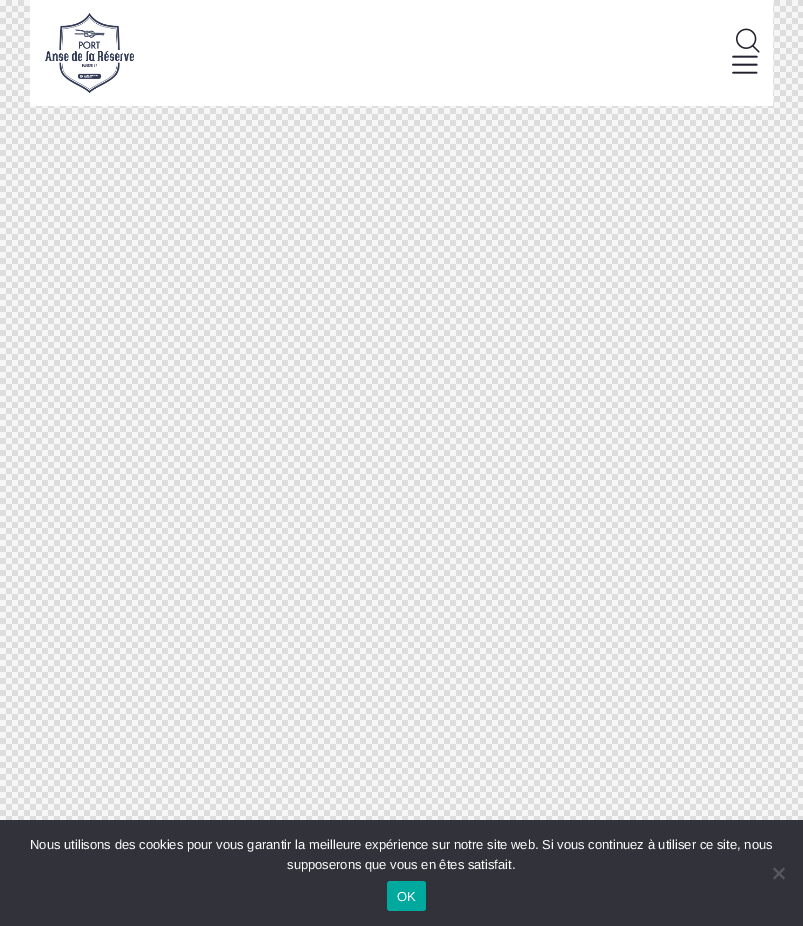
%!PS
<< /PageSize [803 926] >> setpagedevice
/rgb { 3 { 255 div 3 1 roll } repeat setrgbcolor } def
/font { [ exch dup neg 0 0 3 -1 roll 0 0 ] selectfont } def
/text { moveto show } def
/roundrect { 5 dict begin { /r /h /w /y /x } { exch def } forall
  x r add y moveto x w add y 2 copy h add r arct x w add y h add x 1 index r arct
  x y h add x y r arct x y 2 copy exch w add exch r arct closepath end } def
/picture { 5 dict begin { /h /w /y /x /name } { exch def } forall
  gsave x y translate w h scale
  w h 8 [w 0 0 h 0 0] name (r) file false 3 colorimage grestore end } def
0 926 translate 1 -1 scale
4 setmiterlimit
255 255 255 rgb
0 0 803 926 rectfill
(img_01.rgb) 0 0 803 820 picture
30 0 743 106 rectfill
(img_02.rgb) 45 13 89 80 picture
(img_03.rgb) 736 28 24 25 picture
(img_04.rgb) 732 55 26 19 picture
50 50 58 rgb
0 820 803 106 rectfill
89 89 93 rgb
783.5 867.5 moveto 1.5 1.5 rlineto -10.5 10.5 rlineto -1.5 -1.5 rlineto closepath fill
773 869 moveto 1.5 -1.5 rlineto 10.5 10.5 rlineto -1.5 1.5 rlineto closepath fill
0 169 157 rgb
387 881 39 30 3 roundrect fill
/LiberationSans-Regular 13 font
255 255 255 rgb
(Nous utilisons des cookies pour vous garantir la meilleure expérience sur notre site web. Si vous continuez à utiliser ce site, nous) 30 849 text
(supposerons que vous en êtes satisfait.) 287 869 text
(OK) 397 901 text
showpage
